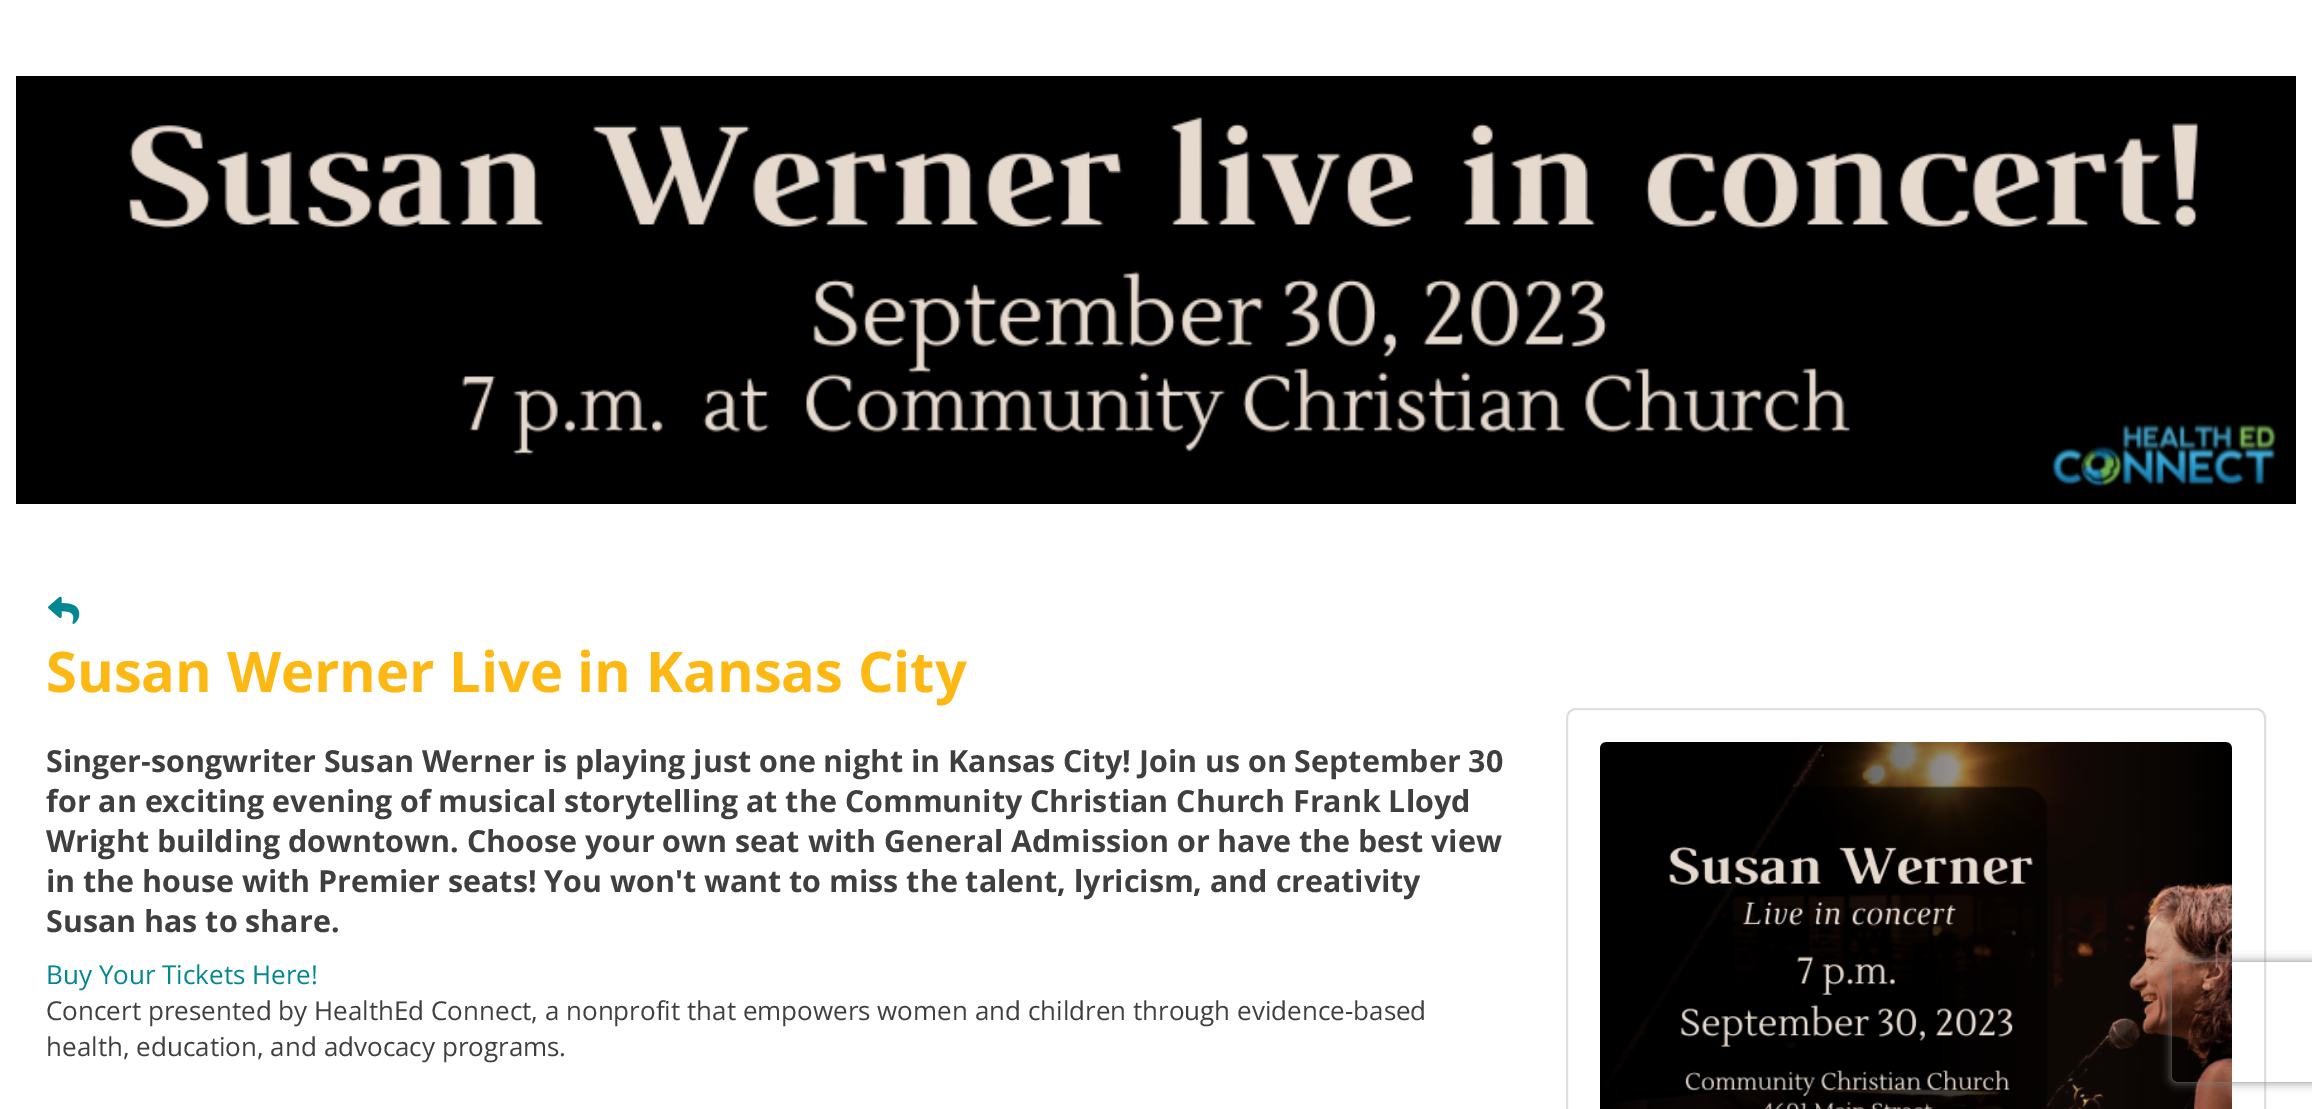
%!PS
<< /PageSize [2312 1109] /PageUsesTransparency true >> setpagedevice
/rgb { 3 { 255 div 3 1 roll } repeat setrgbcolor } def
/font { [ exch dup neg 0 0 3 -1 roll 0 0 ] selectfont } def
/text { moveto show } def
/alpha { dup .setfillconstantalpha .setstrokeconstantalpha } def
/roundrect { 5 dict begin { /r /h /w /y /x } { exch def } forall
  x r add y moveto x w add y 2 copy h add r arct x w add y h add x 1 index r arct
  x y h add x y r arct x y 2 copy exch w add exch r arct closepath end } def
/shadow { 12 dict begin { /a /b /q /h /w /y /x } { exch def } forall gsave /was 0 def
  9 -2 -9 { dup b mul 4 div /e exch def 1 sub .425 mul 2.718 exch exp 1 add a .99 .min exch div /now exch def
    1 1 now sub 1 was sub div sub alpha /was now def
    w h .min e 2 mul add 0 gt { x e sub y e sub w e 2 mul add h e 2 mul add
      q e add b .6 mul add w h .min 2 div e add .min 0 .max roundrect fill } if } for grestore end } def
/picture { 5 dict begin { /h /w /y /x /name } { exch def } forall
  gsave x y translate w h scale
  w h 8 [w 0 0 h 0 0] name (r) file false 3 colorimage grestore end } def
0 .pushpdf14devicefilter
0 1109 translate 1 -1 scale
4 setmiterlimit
255 255 255 rgb
0 0 2312 1109 rectfill
(img_01.rgb) 16 76 2280 428 picture
(img_02.rgb) 48 596 32 28 picture
223 223 223 rgb
2 setlinewidth
1567 709 698 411 9 roundrect stroke
(img_03.rgb) 1600 742 632 367 picture
gsave
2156 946 moveto 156 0 rlineto 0 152 rlineto -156 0 rlineto closepath 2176 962 moveto 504 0 rlineto 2 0 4 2 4 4 rcurveto 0 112 rlineto 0 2 -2 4 -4 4 rcurveto -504 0 rlineto -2 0 -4 -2 -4 -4 rcurveto 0 -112 rlineto 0 -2 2 -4 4 -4 rcurveto closepath eoclip newpath
128 128 128 rgb
2172 962 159 120 4 5 1 shadow
grestore
/OpenSans-Bold 56 font
253 184 19 rgb
(Susan Werner Live in Kansas City) 46 692 text
/OpenSans-Bold 30.4 font
63 63 63 rgb
(Singer-songwriter Susan Werner is playing just one night in Kansas City! Join us on September 30) 46 772 text
(for an exciting evening of musical storytelling at the Community Christian Church Frank Lloyd) 46 812 text
(Wright building downtown. Choose your own seat with General Admission or have the best view) 46 852 text
(in the house with Premier seats! You won't want to miss the talent, lyricism, and creativity) 46 892 text
(Susan has to share.) 46 932 text
/OpenSans-Regular 26 font
0 135 147 rgb
(Buy Your Tickets Here!) 46 984 text
63 63 63 rgb
(Concert presented by HealthEd Connect, a nonprofit that empowers women and children through evidence-based) 46 1020 text
(health, education, and advocacy programs.) 46 1056 text
.poppdf14devicefilter showpage
